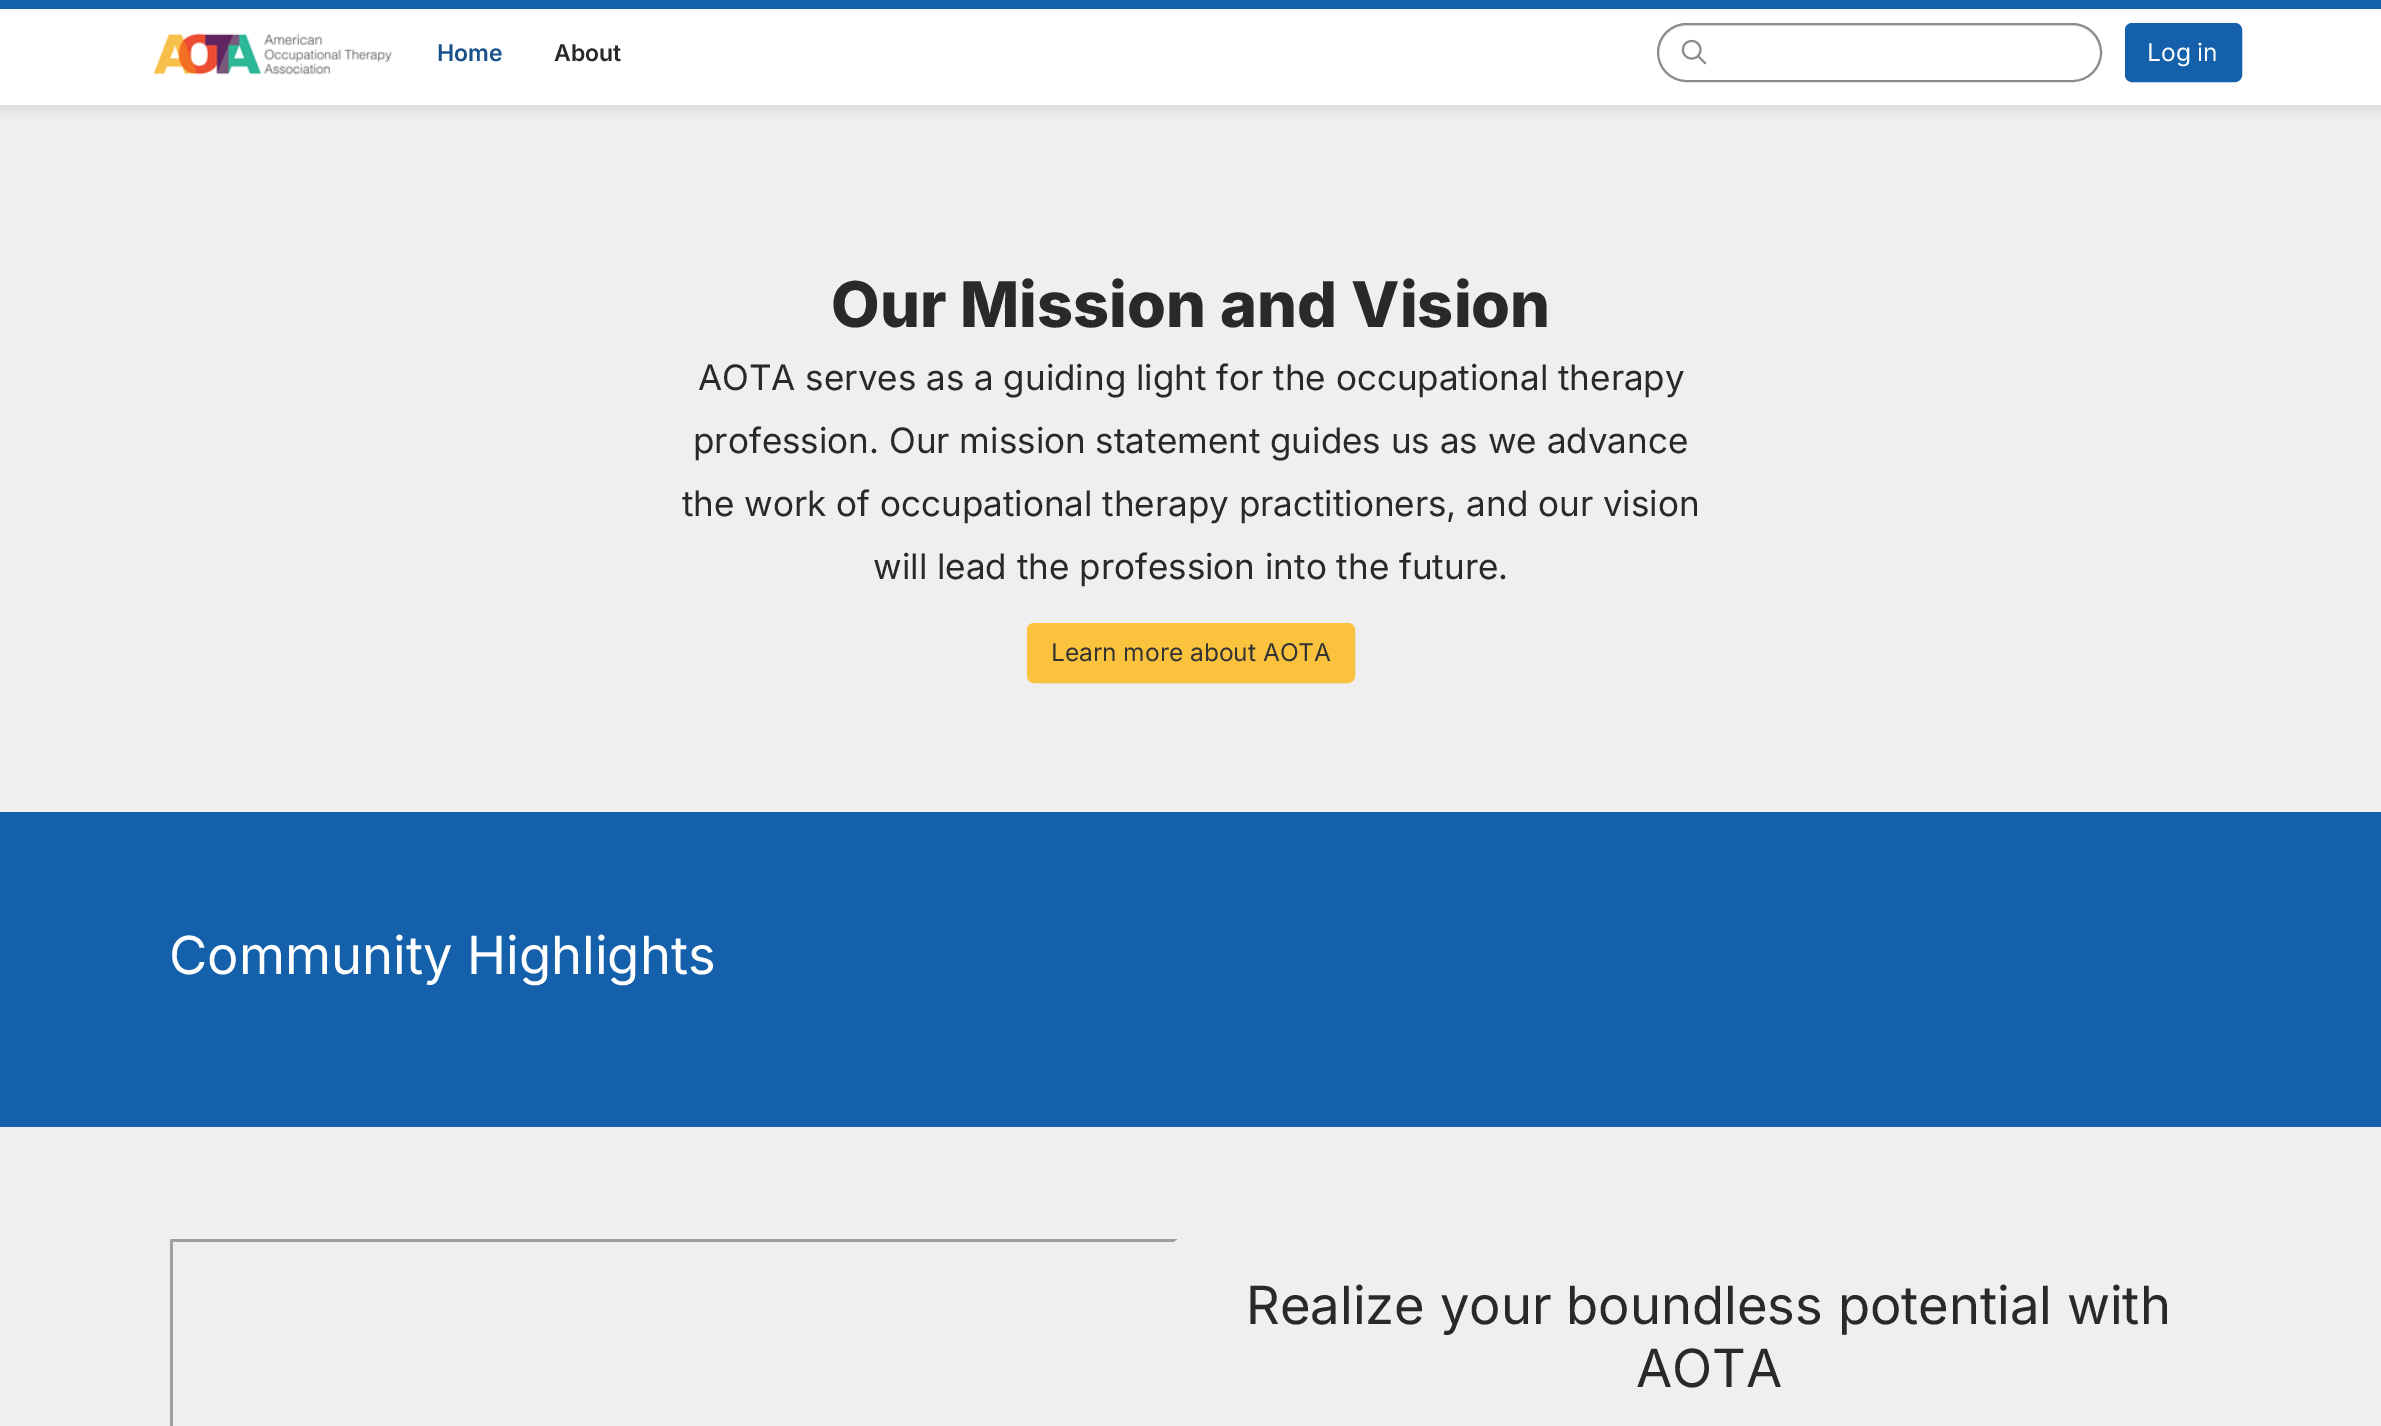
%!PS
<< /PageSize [2381 1426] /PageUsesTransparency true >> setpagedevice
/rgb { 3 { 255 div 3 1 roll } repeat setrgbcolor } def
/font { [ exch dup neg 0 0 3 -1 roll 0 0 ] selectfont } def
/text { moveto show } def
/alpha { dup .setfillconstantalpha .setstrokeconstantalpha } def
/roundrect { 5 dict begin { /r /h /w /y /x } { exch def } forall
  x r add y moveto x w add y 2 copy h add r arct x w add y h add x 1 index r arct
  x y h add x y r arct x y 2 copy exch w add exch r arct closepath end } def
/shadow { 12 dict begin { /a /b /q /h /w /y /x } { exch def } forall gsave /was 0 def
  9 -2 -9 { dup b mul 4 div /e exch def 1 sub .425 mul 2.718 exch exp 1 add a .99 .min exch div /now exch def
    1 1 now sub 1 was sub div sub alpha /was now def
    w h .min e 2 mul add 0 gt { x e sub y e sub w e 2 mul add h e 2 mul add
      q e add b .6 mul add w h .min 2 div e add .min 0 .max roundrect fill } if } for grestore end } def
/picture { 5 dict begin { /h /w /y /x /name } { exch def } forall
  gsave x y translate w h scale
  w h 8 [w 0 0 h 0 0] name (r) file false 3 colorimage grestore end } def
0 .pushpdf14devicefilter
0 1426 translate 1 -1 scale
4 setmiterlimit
239 239 239 rgb
0 0 2381 1426 rectfill
255 255 255 rgb
0 9 2381 96 rectfill
gsave
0 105 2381 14 rectclip
131 135 145 rgb
0 4 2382 105 0 7 0.24 shadow
grestore
20 96 170 rgb
0 0 2381 9 rectfill
(img_01.rgb) 153 33 239 42 picture
236 236 236 rgb
1687 26 moveto 385 0 rlineto 15 0 28 13 28 28 rcurveto 0 -16 -13 -29 -28 -29 rcurveto -385 0 rlineto -15 0 -28 13 -28 29 rcurveto 0 -15 13 -28 28 -28 rcurveto closepath fill
140 140 140 rgb
2 setlinewidth
1658 24 443 57 28.5 roundrect stroke
(img_02.rgb) 1681 39 26 26 picture
20 96 170 rgb
2126 24 115 57 6 roundrect gsave fill grestore
stroke
250 194 61 rgb
1028 624 326 58 6 roundrect gsave fill grestore
stroke
20 96 170 rgb
0 812 2381 315 rectfill
159 159 159 rgb
170 1239 moveto 1008 0 rlineto -4 3 rlineto -1001 0 rlineto closepath fill
238 238 238 rgb
1178 1239 moveto 0 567 rlineto -4 -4 rlineto 0 -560 rlineto closepath fill
159 159 159 rgb
170 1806 moveto 0 -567 rlineto 3 3 rlineto 0 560 rlineto closepath fill
/Inter-SemiBold 23 font
25 82 138 rgb
(Home) 437 61 text
41 41 41 rgb
(About) 554 61 text
/Inter-Regular 24.5 font
255 255 255 rgb
(Log in) 2147 61 text
/Inter-ExtraBold 63 font
41 41 41 rgb
(Our Mission and Vision) 831 327 text
/Inter-Regular 35 font
(AOTA serves as a guiding light for the occupational therapy) 698 390 text
(profession. Our mission statement guides us as we advance) 693 453 text
(the work of occupational therapy practitioners, and our vision) 682 516 text
(will lead the profession into the future.) 873 579 text
/Inter-Regular 24.5 font
51 51 51 rgb
(Learn more about AOTA) 1051 661 text
/Inter-Regular 52.5 font
255 255 255 rgb
(Community Highlights) 169 974 text
41 41 41 rgb
(Realize your boundless potential with) 1246 1324 text
(AOTA) 1636 1387 text
.poppdf14devicefilter showpage
